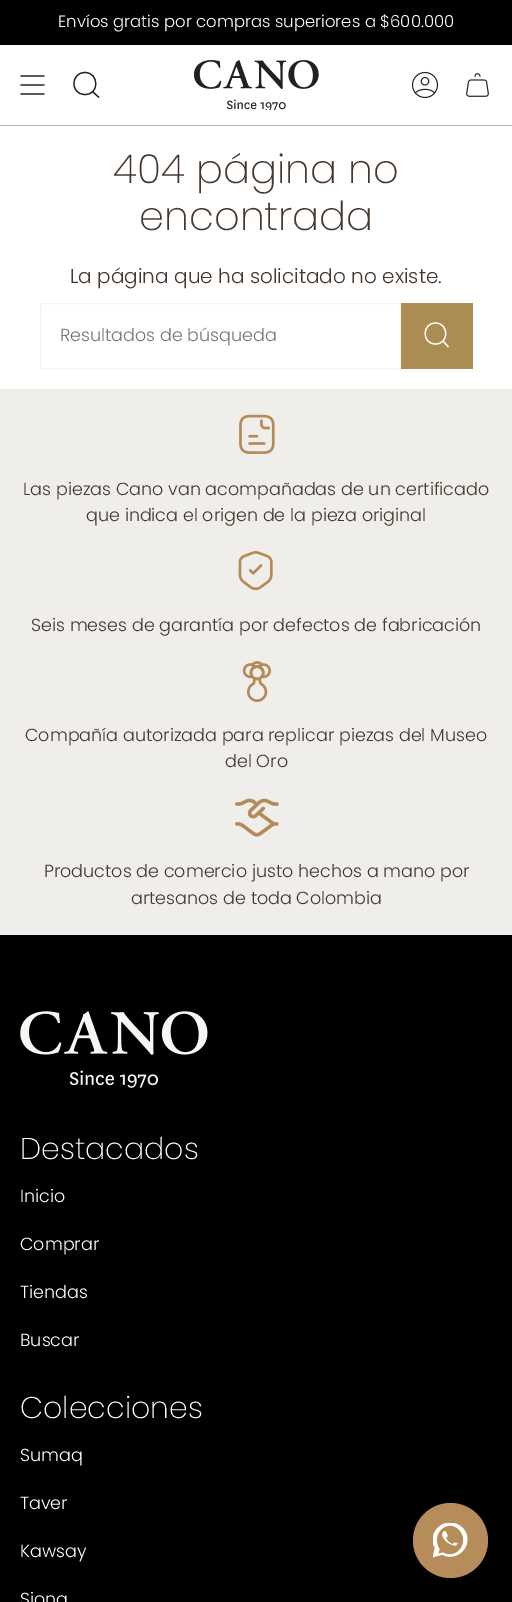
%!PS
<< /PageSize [512 1602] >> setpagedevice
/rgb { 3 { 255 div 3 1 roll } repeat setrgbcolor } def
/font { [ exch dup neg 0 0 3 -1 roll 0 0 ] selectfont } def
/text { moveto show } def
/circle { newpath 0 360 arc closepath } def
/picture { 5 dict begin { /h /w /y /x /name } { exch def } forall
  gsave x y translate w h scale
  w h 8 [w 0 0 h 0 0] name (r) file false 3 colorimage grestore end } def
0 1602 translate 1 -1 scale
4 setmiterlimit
255 255 255 rgb
0 0 512 1602 rectfill
0 0 0 rgb
0 0 512 45 rectfill
33 33 33 rgb
1.2 setlinewidth
1 setlinecap
1 setlinejoin
21 76 moveto 23 0 rlineto 21 85 moveto 23 0 rlineto 21 94 moveto 23 0 rlineto stroke
0 setlinecap
0 setlinejoin
85 72.5 moveto 14.5 0 14.5 23 -0.5 22 rcurveto -14.5 -0.5 -14 -22 0.5 -22 rcurveto closepath 92.5 91.5 moveto 6.5 6 rlineto stroke
(img_01.rgb) 194 60 125 50 picture
(img_02.rgb) 411 71 28 28 picture
(img_03.rgb) 466 73 23 24 picture
190 185 182 rgb
0 125 512 1 rectfill
243 243 243 rgb
1 setlinewidth
40.5 303.5 360 65 rectstroke
171 140 82 rgb
401 303 72 66 rectfill
255 255 255 rgb
1.2 setlinewidth
435.5 323 moveto 14 0 13.5 22 -0.5 21 rcurveto -13.5 -0.5 -13 -21 0.5 -21 rcurveto closepath 443 341 moveto 5.5 6 rlineto stroke
239 238 234 rgb
0 389 512 546 rectfill
(img_04.rgb) 239 414 36 40 picture
(img_05.rgb) 238 551 35 40 picture
(img_06.rgb) 242 661 29 41 picture
(img_07.rgb) 235 798 44 39 picture
0 0 0 rgb
0 935 512 667 rectfill
(img_08.rgb) 20 1011 188 77 picture
182 140 90 rgb
450.5 1540.5 37.5 circle fill
(img_09.rgb) 433 1523 35 35 picture
/Poppins-Light 16.5 font
255 255 255 rgb
(Envíos gratis por compras superiores a $600.000) 58 27 text
/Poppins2-Light 40 font
69 55 45 rgb
(404 página no) 113 183 text
(encontrada) 139 230 text
/Poppins-Light 20 font
(La página que ha solicitado no existe.) 70 283 text
/Poppins-Light 17.5 font
117 117 117 rgb
(Resultados de búsqueda) 60 341 text
69 55 45 rgb
(Las piezas Cano van acompañadas de un certificado) 23 495 text
(que indica el origen de la pieza original) 86 521 text
(Seis meses de garantía por defectos de fabricación) 31 631 text
(Compañía autorizada para replicar piezas del Museo) 25 741 text
(del Oro) 225 767 text
(Productos de comercio justo hechos a mano por) 44 877 text
(artesanos de toda Colombia) 131 904 text
/Poppins2-Light 30 font
255 255 255 rgb
(Destacados) 20 1159 text
/Poppins-Light 17.5 font
(Inicio) 20 1202 text
(Comprar) 20 1250 text
(Tiendas) 20 1298 text
(Buscar) 20 1346 text
/Poppins2-Light 30 font
(Colecciones) 20 1418 text
/Poppins-Light 17.5 font
(Sumaq) 20 1461 text
(Taver) 20 1509 text
(Kawsay) 20 1557 text
(Siona) 20 1605 text
showpage
